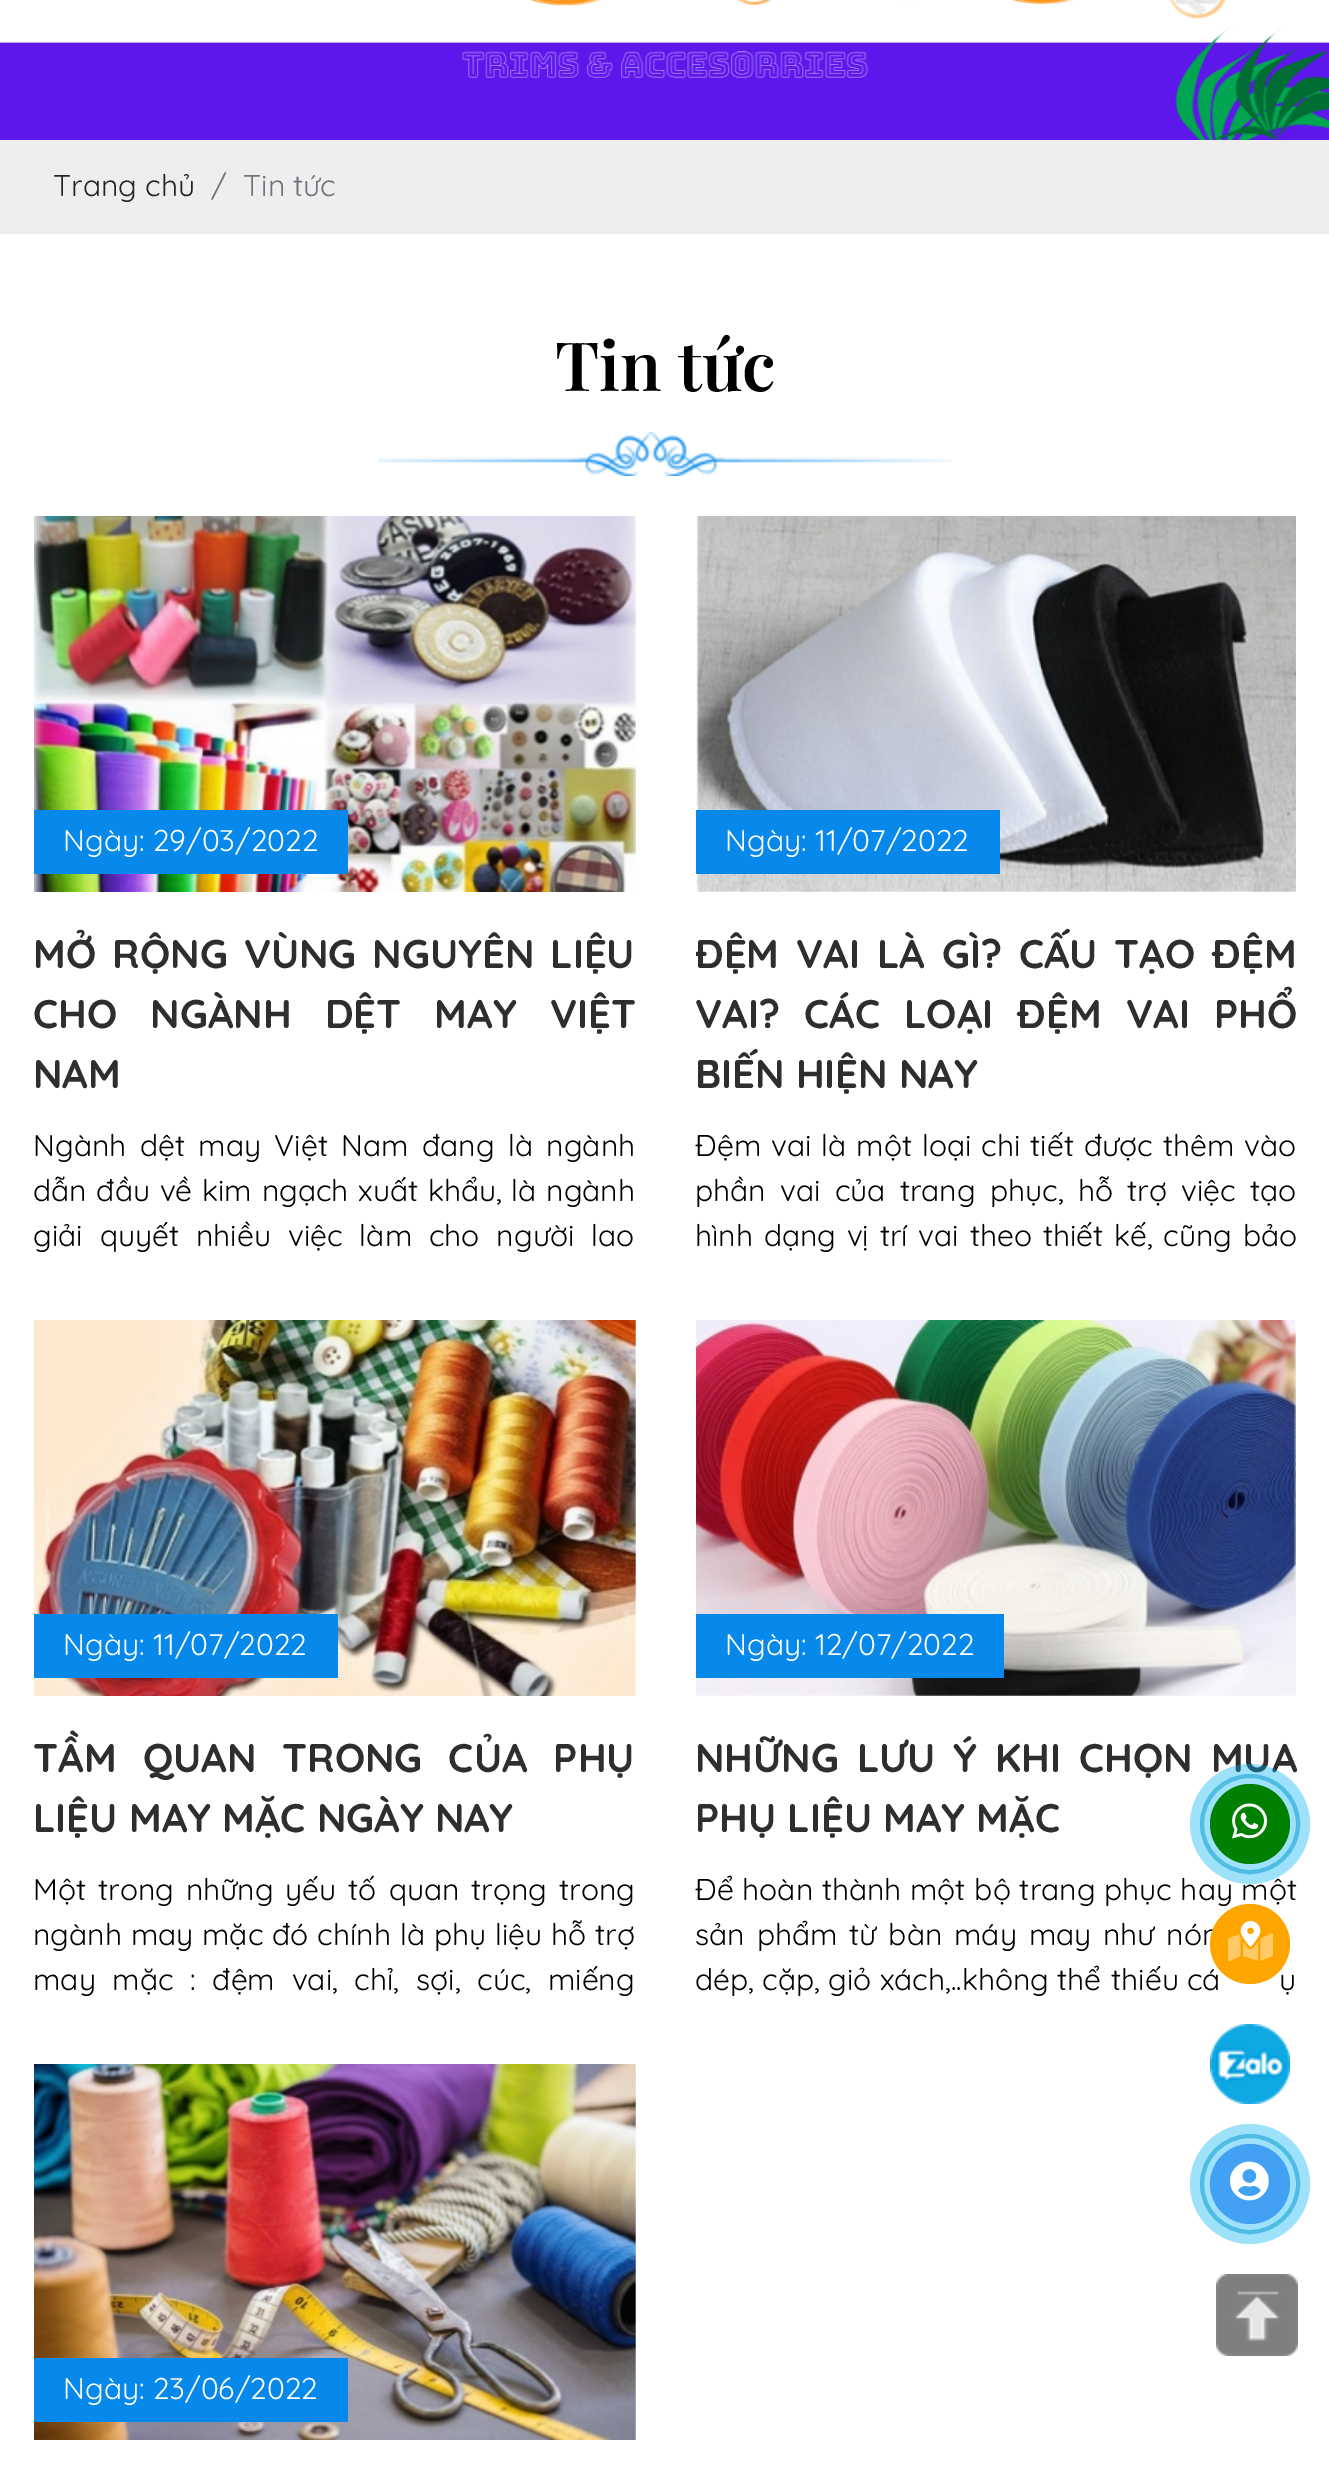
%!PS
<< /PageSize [1329 2485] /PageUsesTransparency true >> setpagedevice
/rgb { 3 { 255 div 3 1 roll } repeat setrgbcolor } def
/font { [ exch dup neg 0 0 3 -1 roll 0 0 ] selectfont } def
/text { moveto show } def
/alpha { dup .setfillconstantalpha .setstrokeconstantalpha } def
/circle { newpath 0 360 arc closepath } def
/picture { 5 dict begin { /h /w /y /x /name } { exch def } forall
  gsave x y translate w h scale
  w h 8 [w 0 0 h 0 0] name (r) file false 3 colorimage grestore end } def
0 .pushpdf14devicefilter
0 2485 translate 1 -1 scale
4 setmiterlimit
255 255 255 rgb
0 0 1329 2485 rectfill
(img_01.rgb) 0 0 1329 140 picture
238 238 238 rgb
0 140 1329 94 rectfill
(img_02.rgb) 378 432 574 44 picture
(img_03.rgb) 34 516 602 376 picture
7 137 235 rgb
34 810 314 64 rectfill
(img_04.rgb) 696 516 600 376 picture
696 810 304 64 rectfill
(img_05.rgb) 34 1320 602 376 picture
34 1614 304 64 rectfill
(img_06.rgb) 696 1320 600 376 picture
696 1614 308 64 rectfill
(img_07.rgb) 34 2064 602 376 picture
34 2358 314 64 rectfill
(img_11.rgb) 1210 2024 80 80 picture
128 196 220 rgb
4 setlinewidth
1250 2184 48 circle stroke
0.38 alpha
0 175 242 rgb
1250 2184 60 circle fill
1 alpha
67 161 243 rgb
1250 2184 40 circle fill
(img_12.rgb) 1230 2161 39 40 picture
(img_13.rgb) 1216 2274 82 82 picture
/Quicksand-Regular 30 font
33 37 41 rgb
(Trang chủ) 53 196 text
108 117 125 rgb
(/) 211 196 text
(Tin tức) 243 196 text
/PlayfairDisplay-SemiBold 68 font
0 0 0 rgb
(Tin tức) 555 391 text
/Quicksand-Regular 30 font
255 255 255 rgb
(Ngày: 29/03/2022) 63 851 text
/Quicksand-Bold 40 font
46 46 46 rgb
33 968 moveto 5 0 32 (MỞ RỘNG VÙNG NGUYÊN LIỆU) widthshow
33 1028 moveto 22 0 32 (CHO NGÀNH DỆT MAY VIỆT) widthshow
(NAM) 33 1088 text
/Quicksand-Regular 30 font
0 0 0 rgb
33 1156 moveto 5.25 0 32 (Ngành dệt may Việt Nam đang là ngành) widthshow
33 1201 moveto 1.5 0 32 (dẫn đầu về kim ngạch xuất khẩu, là ngành) widthshow
33 1246 moveto 8.75 0 32 (giải quyết nhiều việc làm cho người lao) widthshow
255 255 255 rgb
(Ngày: 11/07/2022) 725 851 text
gsave
696 904 600 220 rectclip
/Quicksand-Bold 40 font
46 46 46 rgb
695 968 moveto 5.75 0 32 (ĐỆM VAI LÀ GÌ? CẤU TẠO ĐỆM) widthshow
grestore
/Quicksand-Bold 40 font
46 46 46 rgb
695 1028 moveto 13 0 32 (VAI? CÁC LOẠI ĐỆM VAI PHỔ) widthshow
(BIẾN HIỆN NAY) 695 1088 text
/Quicksand-Regular 30 font
0 0 0 rgb
695 1156 moveto 1.75 0 32 (Đệm vai là một loại chi tiết được thêm vào) widthshow
695 1201 moveto 6 0 32 (phần vai của trang phục, hỗ trợ việc tạo) widthshow
695 1246 moveto 2.5 0 32 (hình dạng vị trí vai theo thiết kế, cũng bảo) widthshow
255 255 255 rgb
(Ngày: 11/07/2022) 63 1655 text
/Quicksand-Bold 40 font
46 46 46 rgb
33 1772 moveto 15 0 32 (TẦM QUAN TRONG CỦA PHỤ) widthshow
(LIỆU MAY MẶC NGÀY NAY) 33 1832 text
/Quicksand-Regular 30 font
0 0 0 rgb
33 1900 moveto 3.75 0 32 (Một trong những yếu tố quan trọng trong) widthshow
33 1945 moveto 0.75 0 32 (ngành may mặc đó chính là phụ liệu hỗ trợ) widthshow
33 1990 moveto 8.5 0 32 (may mặc : đệm vai, chỉ, sợi, cúc, miếng) widthshow
255 255 255 rgb
(Ngày: 12/07/2022) 725 1655 text
/Quicksand-Bold 40 font
46 46 46 rgb
695 1772 moveto 6.75 0 32 (NHỮNG LƯU Ý KHI CHỌN MUA) widthshow
(PHỤ LIỆU MAY MẶC) 695 1832 text
/Quicksand-Regular 30 font
0 0 0 rgb
695 1900 moveto 0.5 0 32 (Để hoàn thành một bộ trang phục hay một) widthshow
695 1945 moveto 3.75 0 32 (sản phẩm từ bàn máy may như nón) widthshow
(dép, cặp, giỏ xách,..không thể) 695 1990 text
(thiếu cá) 1111 1990 text
(ụ) 1279 1990 text
255 255 255 rgb
(Ngày: 23/06/2022) 63 2399 text
128 196 220 rgb
1250 1824 48 circle stroke
0.38 alpha
0 175 242 rgb
1250 1824 60 circle fill
1 alpha
0 128 0 rgb
1250 1824 40 circle fill
(img_08.rgb) 1232 1803 35 36 picture
255 165 0 rgb
1250 1944 40 circle fill
(img_09.rgb) 1240 1921 21 26 picture
(img_10.rgb) 1228 1933 45 28 picture
.poppdf14devicefilter showpage
